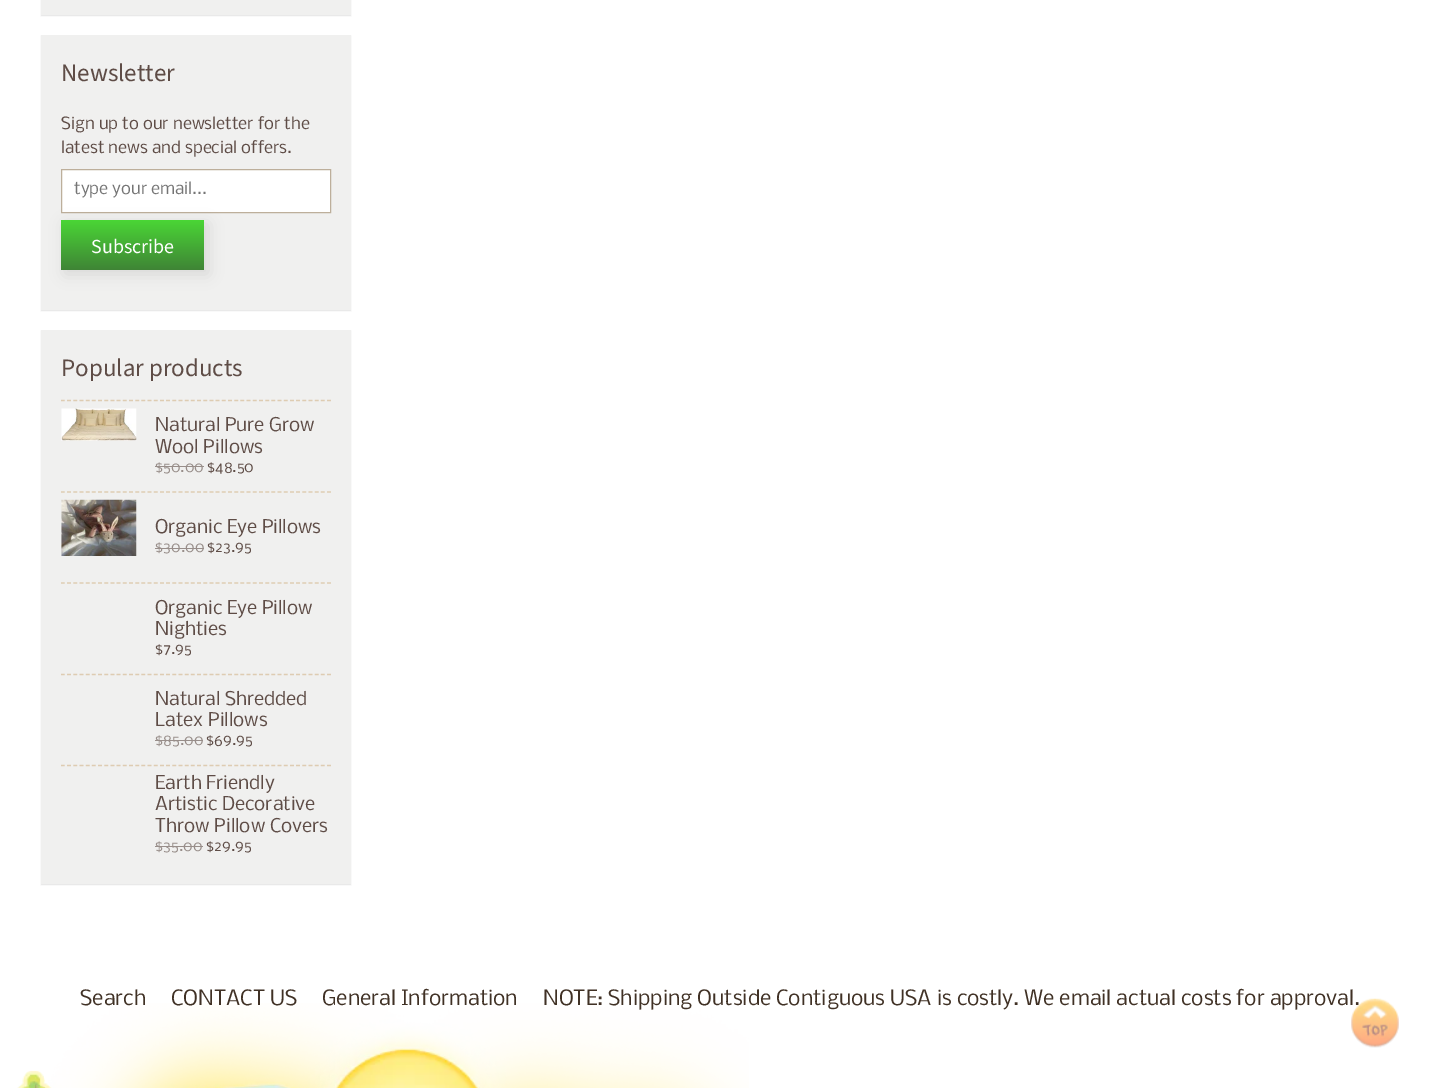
%!PS
<< /PageSize [1440 1088] /PageUsesTransparency true >> setpagedevice
/rgb { 3 { 255 div 3 1 roll } repeat setrgbcolor } def
/font { [ exch dup neg 0 0 3 -1 roll 0 0 ] selectfont } def
/text { moveto show } def
/alpha { dup .setfillconstantalpha .setstrokeconstantalpha } def
/roundrect { 5 dict begin { /r /h /w /y /x } { exch def } forall
  x r add y moveto x w add y 2 copy h add r arct x w add y h add x 1 index r arct
  x y h add x y r arct x y 2 copy exch w add exch r arct closepath end } def
/shadow { 12 dict begin { /a /b /q /h /w /y /x } { exch def } forall gsave /was 0 def
  9 -2 -9 { dup b mul 4 div /e exch def 1 sub .425 mul 2.718 exch exp 1 add a .99 .min exch div /now exch def
    1 1 now sub 1 was sub div sub alpha /was now def
    w h .min e 2 mul add 0 gt { x e sub y e sub w e 2 mul add h e 2 mul add
      q e add b .6 mul add w h .min 2 div e add .min 0 .max roundrect fill } if } for grestore end } def
/picture { 5 dict begin { /h /w /y /x /name } { exch def } forall
  gsave x y translate w h scale
  w h 8 [w 0 0 h 0 0] name (r) file false 3 colorimage grestore end } def
0 .pushpdf14devicefilter
0 1088 translate 1 -1 scale
4 setmiterlimit
255 255 255 rgb
0 0 1440 1088 rectfill
0 0 0 rgb
41 -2 310 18 0 0.5 0.1 shadow
240 240 239 rgb
41 0 310 15 rectfill
0 0 0 rgb
41 36 310 275 0 0.5 0.1 shadow
240 240 239 rgb
41 35 310 275 rectfill
255 255 255 rgb
61.5 169.5 moveto 269 0 rlineto 0 43 rlineto -269 0 rlineto closepath gsave fill grestore
189 175 155 rgb
stroke
0 0 0 rgb
65 224 143 50 0 7.5 0.1 shadow
gsave 61 220 moveto 143 0 rlineto 0 50 rlineto -143 0 rlineto closepath clip newpath
<< /ShadingType 2 /ColorSpace /DeviceRGB /Coords [133 220 133 270] /Extend [true true] /Function << /FunctionType 2 /Domain [0 1] /C0 [0.29 0.839 0.212] /C1 [0.247 0.518 0.208] /N 1 >> >> shfill grestore
41 331 310 554 0 0.5 0.1 shadow
240 240 239 rgb
41 330 310 554 rectfill
222 204 178 rgb
1.2 setlinewidth
[3.75 2.44] 0 setdash
61 400.5 moveto 270 0 rlineto stroke
(img_01.rgb) 61 408 76 33 picture
152 142 138 rgb
155 466 49 1 rectfill
222 204 178 rgb
61 492 moveto 270 0 rlineto stroke
(img_02.rgb) 61 499 76 57 picture
152 142 138 rgb
155 548 49 1 rectfill
222 204 178 rgb
61 583 moveto 270 0 rlineto stroke
61 674.5 moveto 270 0 rlineto stroke
152 142 138 rgb
155 740 48 1 rectfill
222 204 178 rgb
61 765.5 moveto 270 0 rlineto stroke
152 142 138 rgb
155 846 48 1 rectfill
(img_03.rgb) 17 1003 732 85 picture
/SourceSansPro-Regular 25 font
94 76 70 rgb
(Newsletter) 61 81 text
/Nobile-Regular 16 font
(Sign up to our newsletter for the) 61 129 text
(latest news and special offers.) 61 153 text
117 117 117 rgb
(type your email...) 74 194 text
/SourceSansPro-Regular 20 font
255 255 255 rgb
(Subscribe) 91 253 text
/SourceSansPro-Regular 25 font
94 76 70 rgb
(Popular products) 61 376 text
/Nobile-Regular 18 font
(Natural Pure Grow) 155 431 text
(Wool Pillows) 155 453 text
/Nobile-Regular 14.5 font
152 142 138 rgb
($50.00) 155 472 text
94 76 70 rgb
($48.50) 207 472 text
/Nobile-Regular 18 font
(Organic Eye Pillows) 155 533 text
/Nobile-Regular 14.5 font
152 142 138 rgb
($30.00) 155 552 text
94 76 70 rgb
($23.95) 207 552 text
/Nobile-Regular 18 font
(Organic Eye Pillow) 155 614 text
(Nighties) 155 635 text
/Nobile-Regular 14.5 font
($7.95) 155 654 text
/Nobile-Regular 18 font
(Natural Shredded) 155 705 text
(Latex Pillows) 155 726 text
/Nobile-Regular 14.5 font
152 142 138 rgb
($85.00) 155 745 text
94 76 70 rgb
($69.95) 206 745 text
/Nobile-Regular 18 font
(Earth Friendly) 155 789 text
(Artistic Decorative) 155 810 text
(Throw Pillow Covers) 155 832 text
/Nobile-Regular 14.5 font
152 142 138 rgb
($35.00) 155 851 text
94 76 70 rgb
($29.95) 206 851 text
/Nobile-Regular 20 font
64 49 37 rgb
(Search) 80 1005 text
(CONTACT US) 171 1005 text
(General Information) 322 1005 text
(NOTE: Shipping Outside Contiguous USA is costly. We email actual costs for approval.) 543 1005 text
(img_04.rgb) 1351 998 48 50 picture
.poppdf14devicefilter showpage
